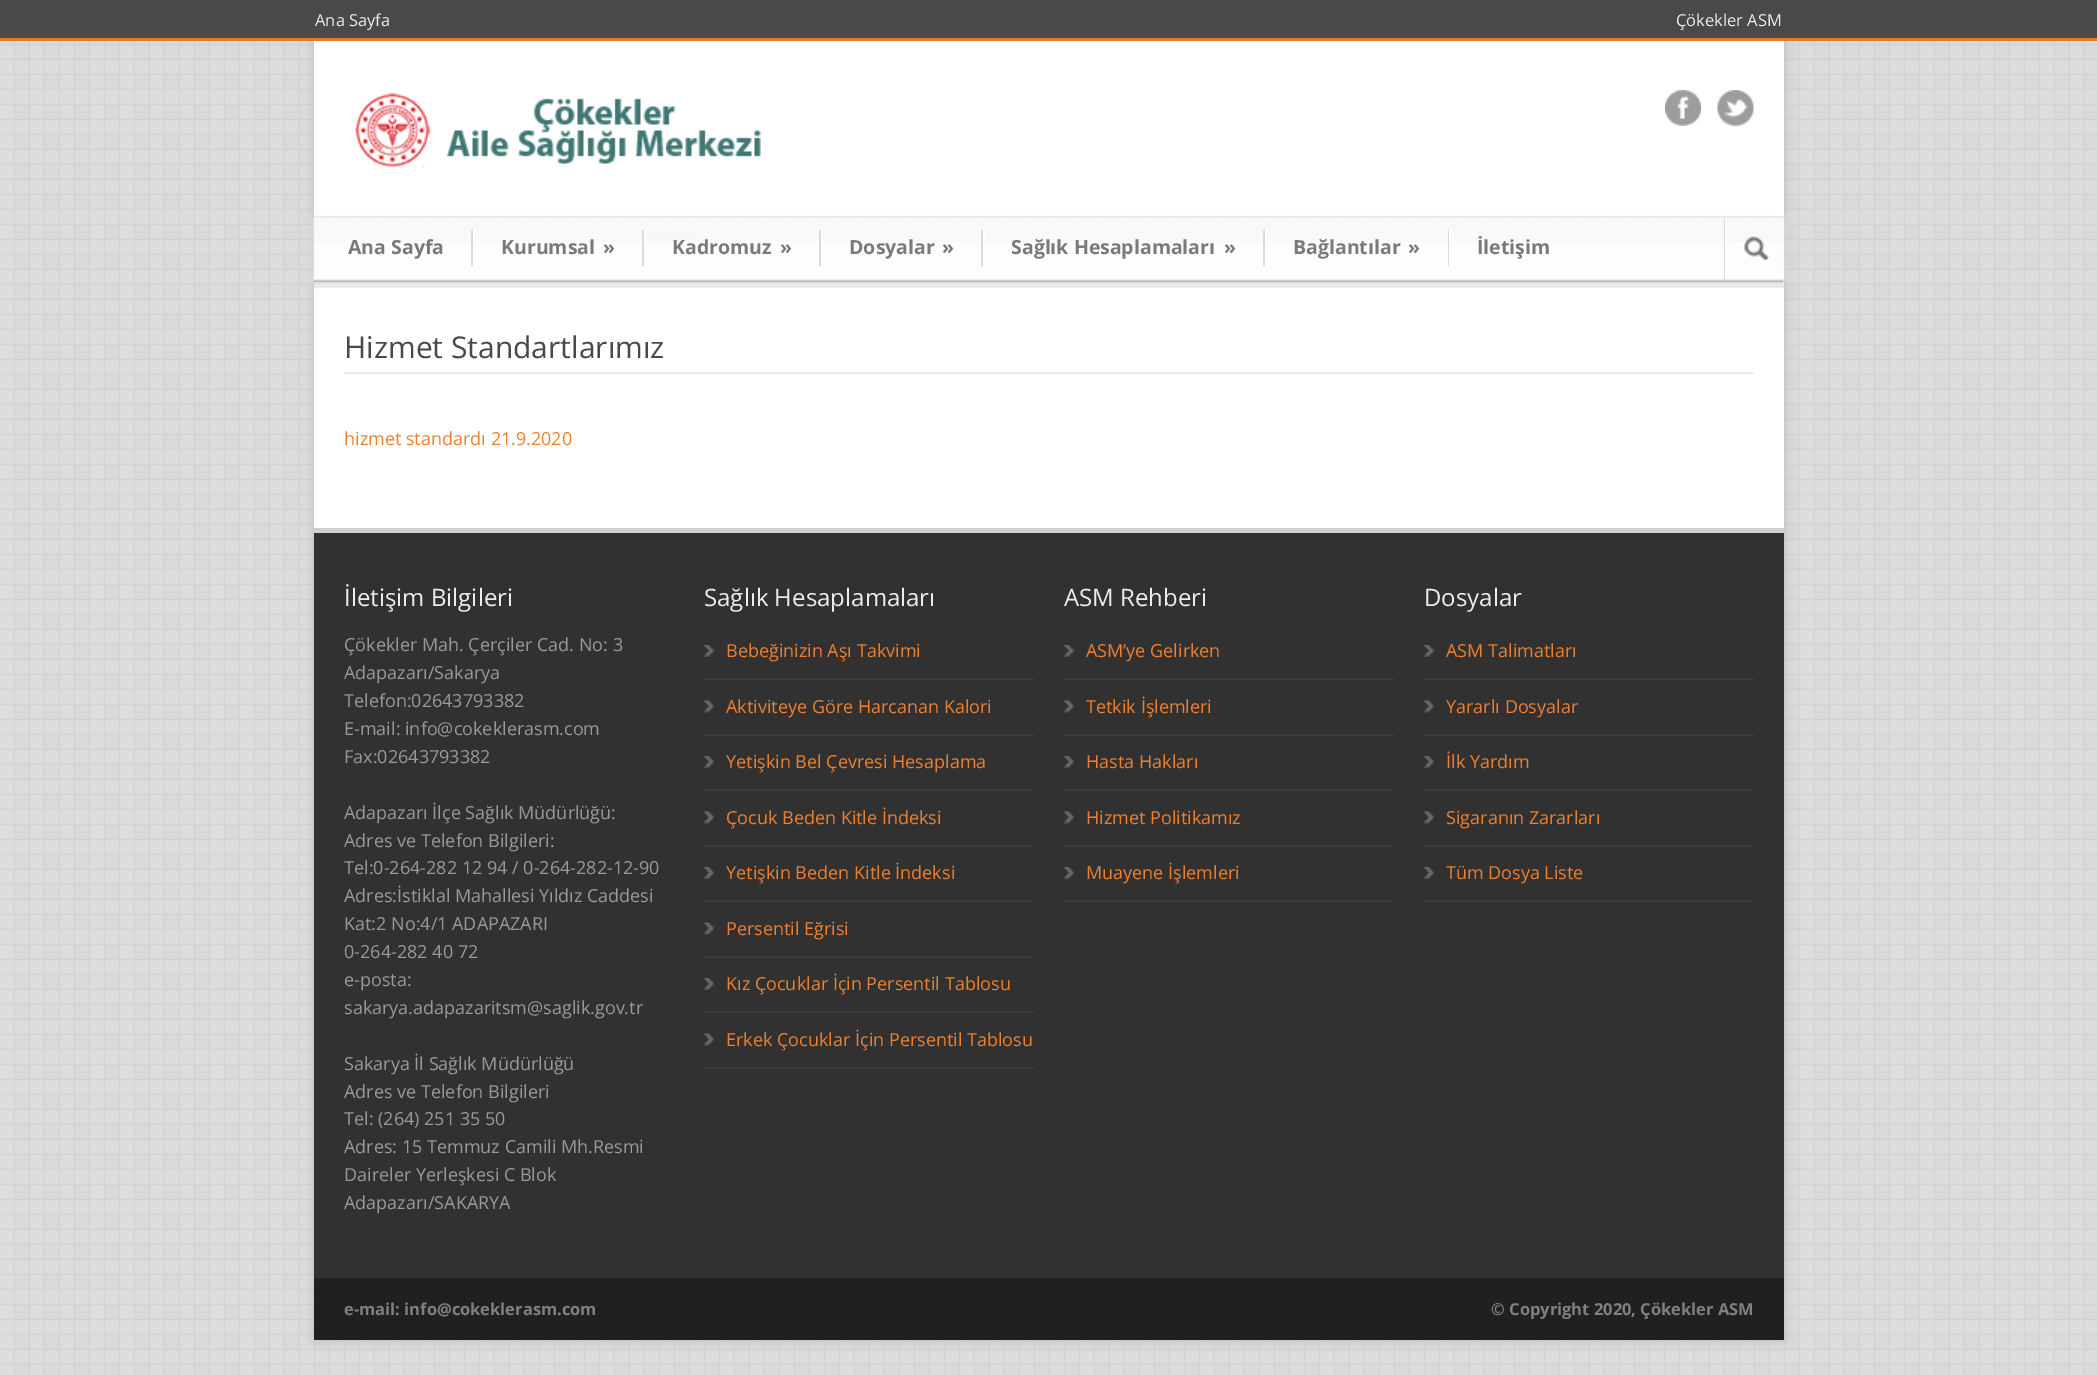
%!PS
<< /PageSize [2097 1375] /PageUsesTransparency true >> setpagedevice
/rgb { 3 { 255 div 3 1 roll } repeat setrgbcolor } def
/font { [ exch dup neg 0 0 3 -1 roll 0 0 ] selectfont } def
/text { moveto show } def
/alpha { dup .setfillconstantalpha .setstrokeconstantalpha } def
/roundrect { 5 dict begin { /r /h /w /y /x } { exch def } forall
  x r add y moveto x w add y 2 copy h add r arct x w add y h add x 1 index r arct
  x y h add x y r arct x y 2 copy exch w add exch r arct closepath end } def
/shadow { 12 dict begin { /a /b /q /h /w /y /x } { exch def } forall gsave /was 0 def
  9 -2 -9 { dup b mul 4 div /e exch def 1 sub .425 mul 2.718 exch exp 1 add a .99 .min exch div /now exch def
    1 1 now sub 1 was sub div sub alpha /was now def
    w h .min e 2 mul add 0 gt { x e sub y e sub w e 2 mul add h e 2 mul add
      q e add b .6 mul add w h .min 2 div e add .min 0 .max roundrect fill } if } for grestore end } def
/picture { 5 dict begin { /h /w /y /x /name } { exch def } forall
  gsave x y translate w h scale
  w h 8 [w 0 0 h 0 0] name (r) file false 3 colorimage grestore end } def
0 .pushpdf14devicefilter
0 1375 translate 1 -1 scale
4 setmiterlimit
221 221 221 rgb
0 0 2097 1375 rectfill
(img_01.rgb) 0 41 2097 1334 picture
187 187 187 rgb
314 41 1470 1299 0 6 1 shadow
73 73 73 rgb
0 0 2097 38 rectfill
231 121 39 rgb
0 38 2097 3 rectfill
255 255 255 rgb
314 41 1470 487 rectfill
(img_02.rgb) 355 93 406 75 picture
(img_03.rgb) 1665 90 36 36 picture
(img_04.rgb) 1717 90 37 36 picture
245 245 245 rgb
315 219 1467 62 0 4 1 shadow
253 253 253 rgb
315 219 1467 60 rectfill
(img_05.rgb) 314 218 1469 24 picture
236 236 236 rgb
314 216 1470 2 rectfill
314 279 1470 2 rectfill
219 219 219 rgb
471 230 2 36 rectfill
642 230 2 36 rectfill
255 255 255 rgb
473 230 2 12 rectfill
219 219 219 rgb
819 230 2 36 rectfill
255 255 255 rgb
644 230 2 12 rectfill
219 219 219 rgb
981 230 2 36 rectfill
255 255 255 rgb
821 230 2 12 rectfill
219 219 219 rgb
1263 230 2 36 rectfill
255 255 255 rgb
983 230 2 12 rectfill
219 219 219 rgb
1448 230 1 36 rectfill
255 255 255 rgb
1265 230 2 12 rectfill
1449 230 2 12 rectfill
219 219 219 rgb
1724 218 1 61 rectfill
255 255 255 rgb
1725 218 2 24 rectfill
(img_06.rgb) 1743 235 26 26 picture
235 235 235 rgb
314 281 1470 7 rectfill
(img_07.rgb) 313 280 1471 4 picture
(img_08.rgb) 313 280 1471 2 picture
236 236 236 rgb
344 372 1410 2 rectfill
49 49 49 rgb
314 533 1470 745 rectfill
207 207 207 rgb
314 528 1470 5 rectfill
(img_09.rgb) 703 645 12 12 picture
59 59 59 rgb
704 678 330 2 rectfill
(img_10.rgb) 703 700 12 13 picture
704 734 330 2 rectfill
(img_09.rgb) 703 756 12 12 picture
704 789 330 2 rectfill
(img_10.rgb) 703 811 12 13 picture
704 845 330 2 rectfill
(img_09.rgb) 703 867 12 12 picture
704 900 330 2 rectfill
(img_10.rgb) 703 922 12 13 picture
704 956 330 2 rectfill
(img_09.rgb) 703 978 12 12 picture
704 1011 330 2 rectfill
(img_10.rgb) 703 1033 12 13 picture
704 1067 330 2 rectfill
(img_11.rgb) 1063 645 12 12 picture
1064 678 330 2 rectfill
(img_12.rgb) 1063 700 12 13 picture
1064 734 330 2 rectfill
(img_11.rgb) 1063 756 12 12 picture
1064 789 330 2 rectfill
(img_12.rgb) 1063 811 12 13 picture
1064 845 330 2 rectfill
(img_11.rgb) 1063 867 12 12 picture
1064 900 330 2 rectfill
(img_09.rgb) 1423 645 12 12 picture
1424 678 330 2 rectfill
(img_10.rgb) 1423 700 12 13 picture
1424 734 330 2 rectfill
(img_09.rgb) 1423 756 12 12 picture
1424 789 330 2 rectfill
(img_10.rgb) 1423 811 12 13 picture
1424 845 330 2 rectfill
(img_09.rgb) 1423 867 12 12 picture
1424 900 330 2 rectfill
32 32 32 rgb
314 1278 1470 62 rectfill
/OpenSans-Regular 16.5 font
236 236 236 rgb
(Ana Sayfa) 315 26 text
(Çökekler ASM) 1676 26 text
/OpenSans-Bold 19.5 font
122 122 122 rgb
(Ana Sayfa) 348 254 text
(Kurumsal) 501 254 text
(») 603 254 text
(Kadromuz) 672 254 text
(») 780 254 text
(Dosyalar) 849 254 text
(») 942 254 text
(Sağlık Hesaplamaları) 1011 254 text
(») 1224 254 text
(Bağlantılar) 1293 254 text
(») 1408 254 text
(İletişim) 1477 254 text
/OpenSans-Regular 30 font
73 73 73 rgb
(Hizmet Standartlarımız) 344 358 text
/OpenSans-Regular 18 font
239 127 44 rgb
(hizmet standardı 21.9.2020) 344 445 text
/OpenSans-Regular 24 font
236 236 236 rgb
(İletişim Bilgileri) 344 606 text
/OpenSans-Regular 18 font
153 153 153 rgb
(Çökekler Mah. Çerçiler Cad. No: 3) 344 651 text
(Adapazarı/Sakarya) 344 679 text
(Telefon:02643793382) 344 707 text
(E-mail: info@cokeklerasm.com) 344 735 text
(Fax:02643793382) 344 763 text
(Adapazarı İlçe Sağlık Müdürlüğü:) 344 819 text
(Adres ve Telefon Bilgileri:) 344 847 text
(Tel:0-264-282 12 94 / 0-264-282-12-90) 344 874 text
(Adres:İstiklal Mahallesi Yıldız Caddesi) 344 902 text
(Kat:2 No:4/1 ADAPAZARI) 344 930 text
(0-264-282 40 72) 344 958 text
(e-posta:) 344 986 text
(sakarya.adapazaritsm@saglik.gov.tr) 344 1014 text
(Sakarya İl Sağlık Müdürlüğü) 344 1070 text
(Adres ve Telefon Bilgileri) 344 1098 text
(Tel: \(264\) 251 35 50) 344 1125 text
(Adres: 15 Temmuz Camili Mh.Resmi) 344 1153 text
(Daireler Yerleşkesi C Blok) 344 1181 text
(Adapazarı/SAKARYA) 344 1209 text
/OpenSans-Regular 24 font
236 236 236 rgb
(Sağlık Hesaplamaları) 704 606 text
/OpenSans-Regular 18 font
239 127 44 rgb
(Bebeğinizin Aşı Takvimi) 726 657 text
(Aktiviteye Göre Harcanan Kalori) 726 713 text
(Yetişkin Bel Çevresi Hesaplama) 726 768 text
(Çocuk Beden Kitle İndeksi) 726 824 text
(Yetişkin Beden Kitle İndeksi) 726 879 text
(Persentil Eğrisi) 726 935 text
(Kız Çocuklar İçin Persentil Tablosu) 726 990 text
(Erkek Çocuklar İçin Persentil Tablosu) 726 1046 text
/OpenSans-Regular 24 font
236 236 236 rgb
(ASM Rehberi) 1064 606 text
/OpenSans-Regular 18 font
239 127 44 rgb
(ASM’ye Gelirken) 1086 657 text
(Tetkik İşlemleri) 1086 713 text
(Hasta Hakları) 1086 768 text
(Hizmet Politikamız) 1086 824 text
(Muayene İşlemleri) 1086 879 text
/OpenSans-Regular 24 font
236 236 236 rgb
(Dosyalar) 1424 606 text
/OpenSans-Regular 18 font
239 127 44 rgb
(ASM Talimatları) 1446 657 text
(Yararlı Dosyalar) 1446 713 text
(İlk Yardım) 1446 768 text
(Sigaranın Zararları) 1446 824 text
(Tüm Dosya Liste) 1446 879 text
/OpenSans-Bold 16.5 font
128 128 128 rgb
(e-mail: info@cokeklerasm.com) 344 1315 text
(© Copyright 2020, Çökekler ASM) 1491 1315 text
.poppdf14devicefilter showpage
